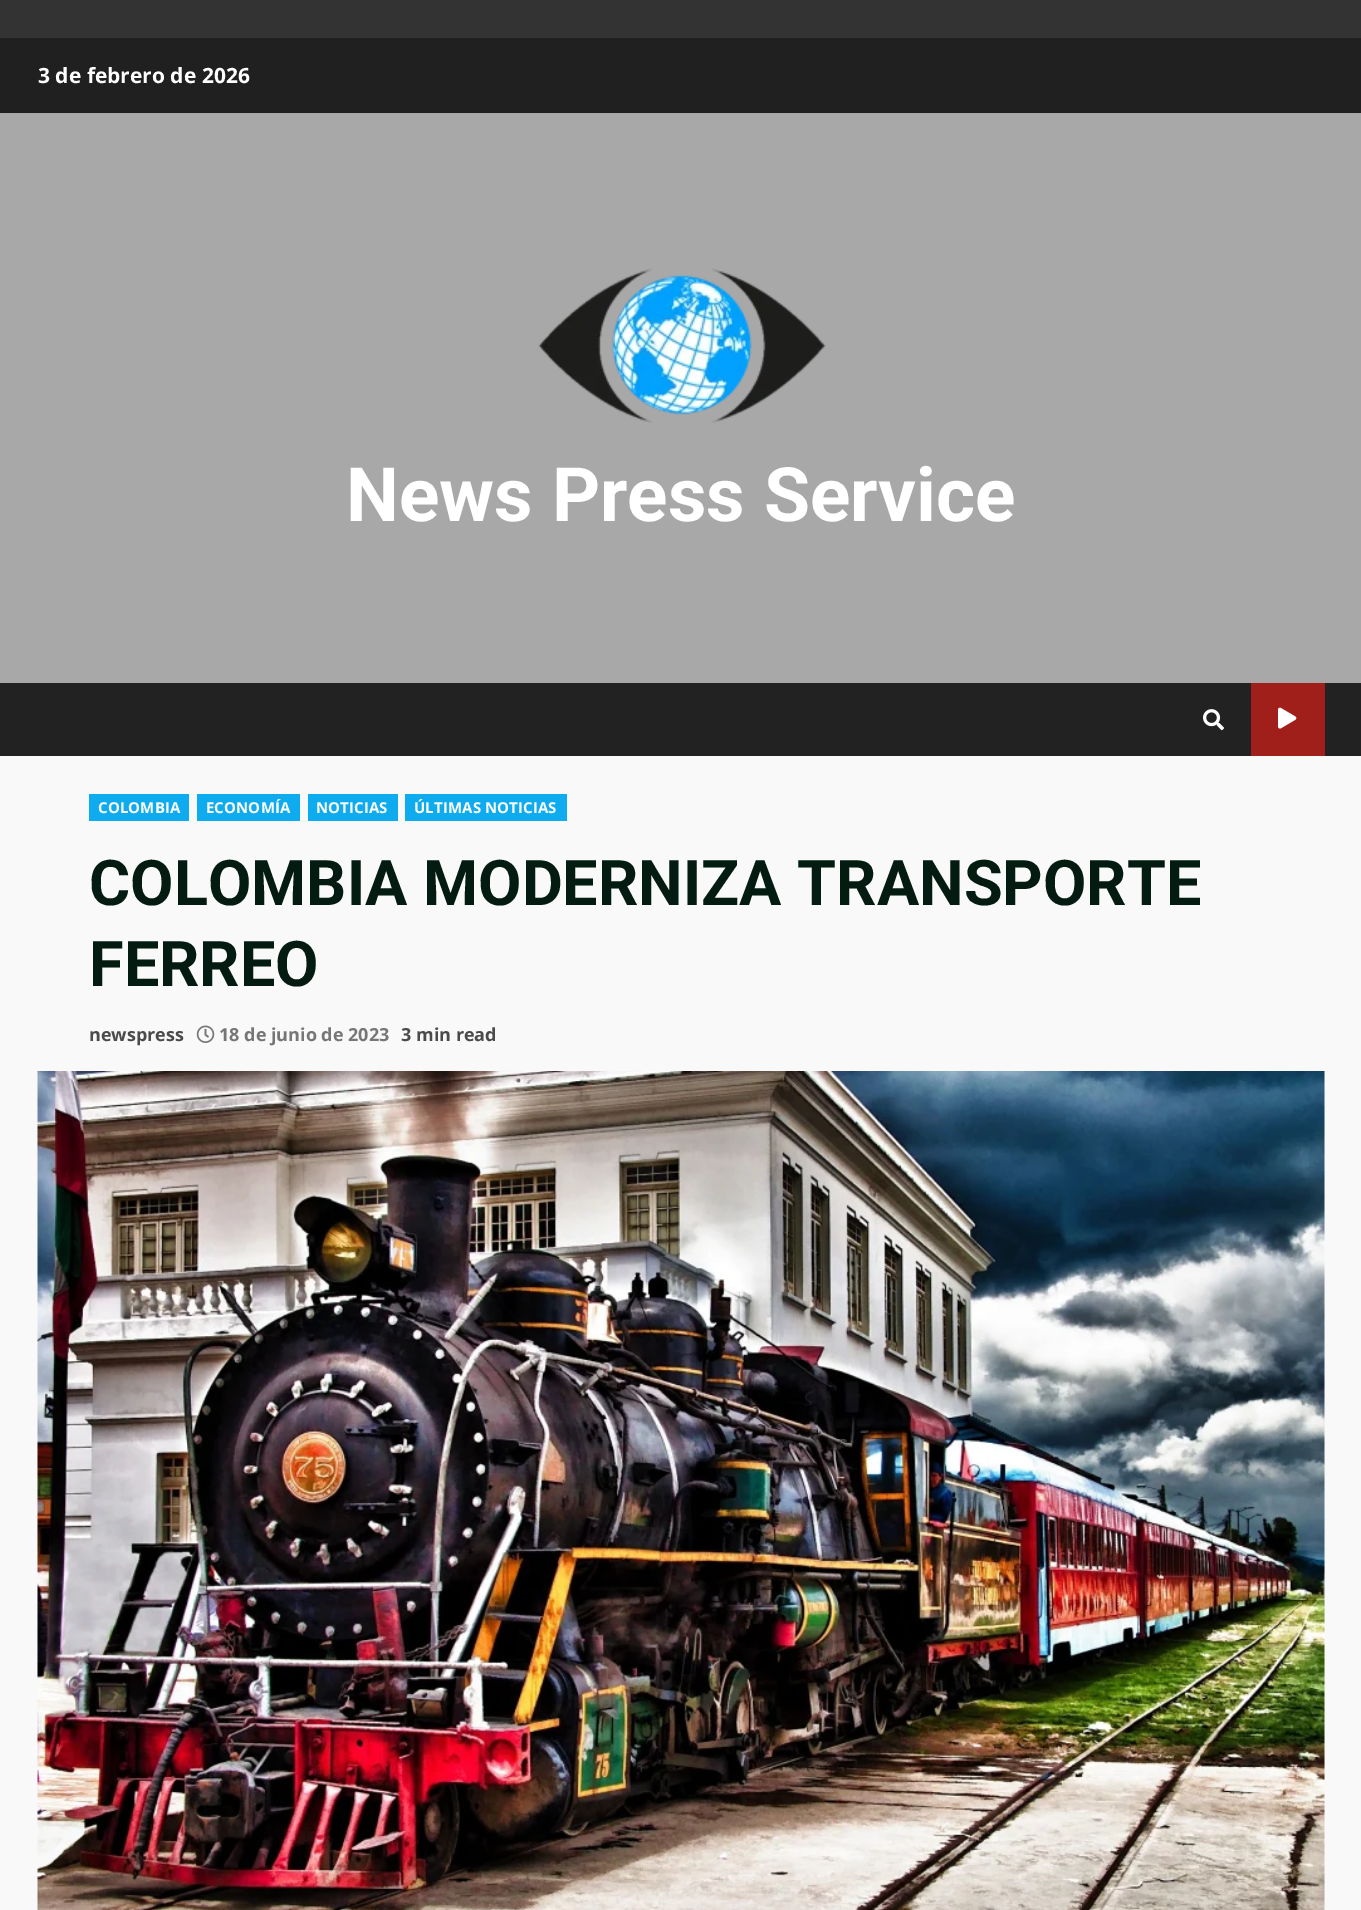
%!PS
<< /PageSize [1361 1910] >> setpagedevice
/rgb { 3 { 255 div 3 1 roll } repeat setrgbcolor } def
/font { [ exch dup neg 0 0 3 -1 roll 0 0 ] selectfont } def
/text { moveto show } def
/picture { 5 dict begin { /h /w /y /x /name } { exch def } forall
  gsave x y translate w h scale
  w h 8 [w 0 0 h 0 0] name (r) file false 3 colorimage grestore end } def
0 1910 translate 1 -1 scale
4 setmiterlimit
51 51 51 rgb
0 0 1361 1910 rectfill
249 249 249 rgb
0 756 1361 1154 rectfill
32 32 32 rgb
0 38 1361 75 rectfill
168 168 168 rgb
0 113 1361 570 rectfill
(img_01.rgb) 538 268 288 155 picture
34 34 34 rgb
0 683 1361 73 rectfill
(img_02.rgb) 1203 709 21 22 picture
161 31 27 rgb
1251 683 74 73 rectfill
(img_03.rgb) 1278 707 19 22 picture
14 172 239 rgb
89 794 100 27 rectfill
197 794 103 27 rectfill
308 794 90 27 rectfill
405 794 162 27 rectfill
(img_04.rgb) 196 1025 19 18 picture
(img_05.rgb) 37 1071 1288 839 picture
/OpenSans-Bold 21 font
255 255 255 rgb
(3 de febrero de 2026) 38 83 text
/Roboto-Bold 75 font
(News Press Service) 346 521 text
/OpenSans-Bold 15 font
98 813 moveto 0.1 0 (COLOMBIA) ashow
206 813 moveto 0.1 0 (ECONOMÍA) ashow
316 813 moveto 0.1 0 (NOTICIAS) ashow
414 813 moveto 0.1 0 (ÚLTIMAS NOTICIAS) ashow
/Roboto-Bold 63 font
3 27 17 rgb
(COLOMBIA MODERNIZA TRANSPORTE) 89 905 text
(FERREO) 89 986 text
/OpenSans-Bold 18 font
74 74 74 rgb
(newspress) 89 1041 text
118 118 118 rgb
(18 de junio de 2023) 219 1041 text
74 74 74 rgb
(3 min read) 401 1041 text
showpage
